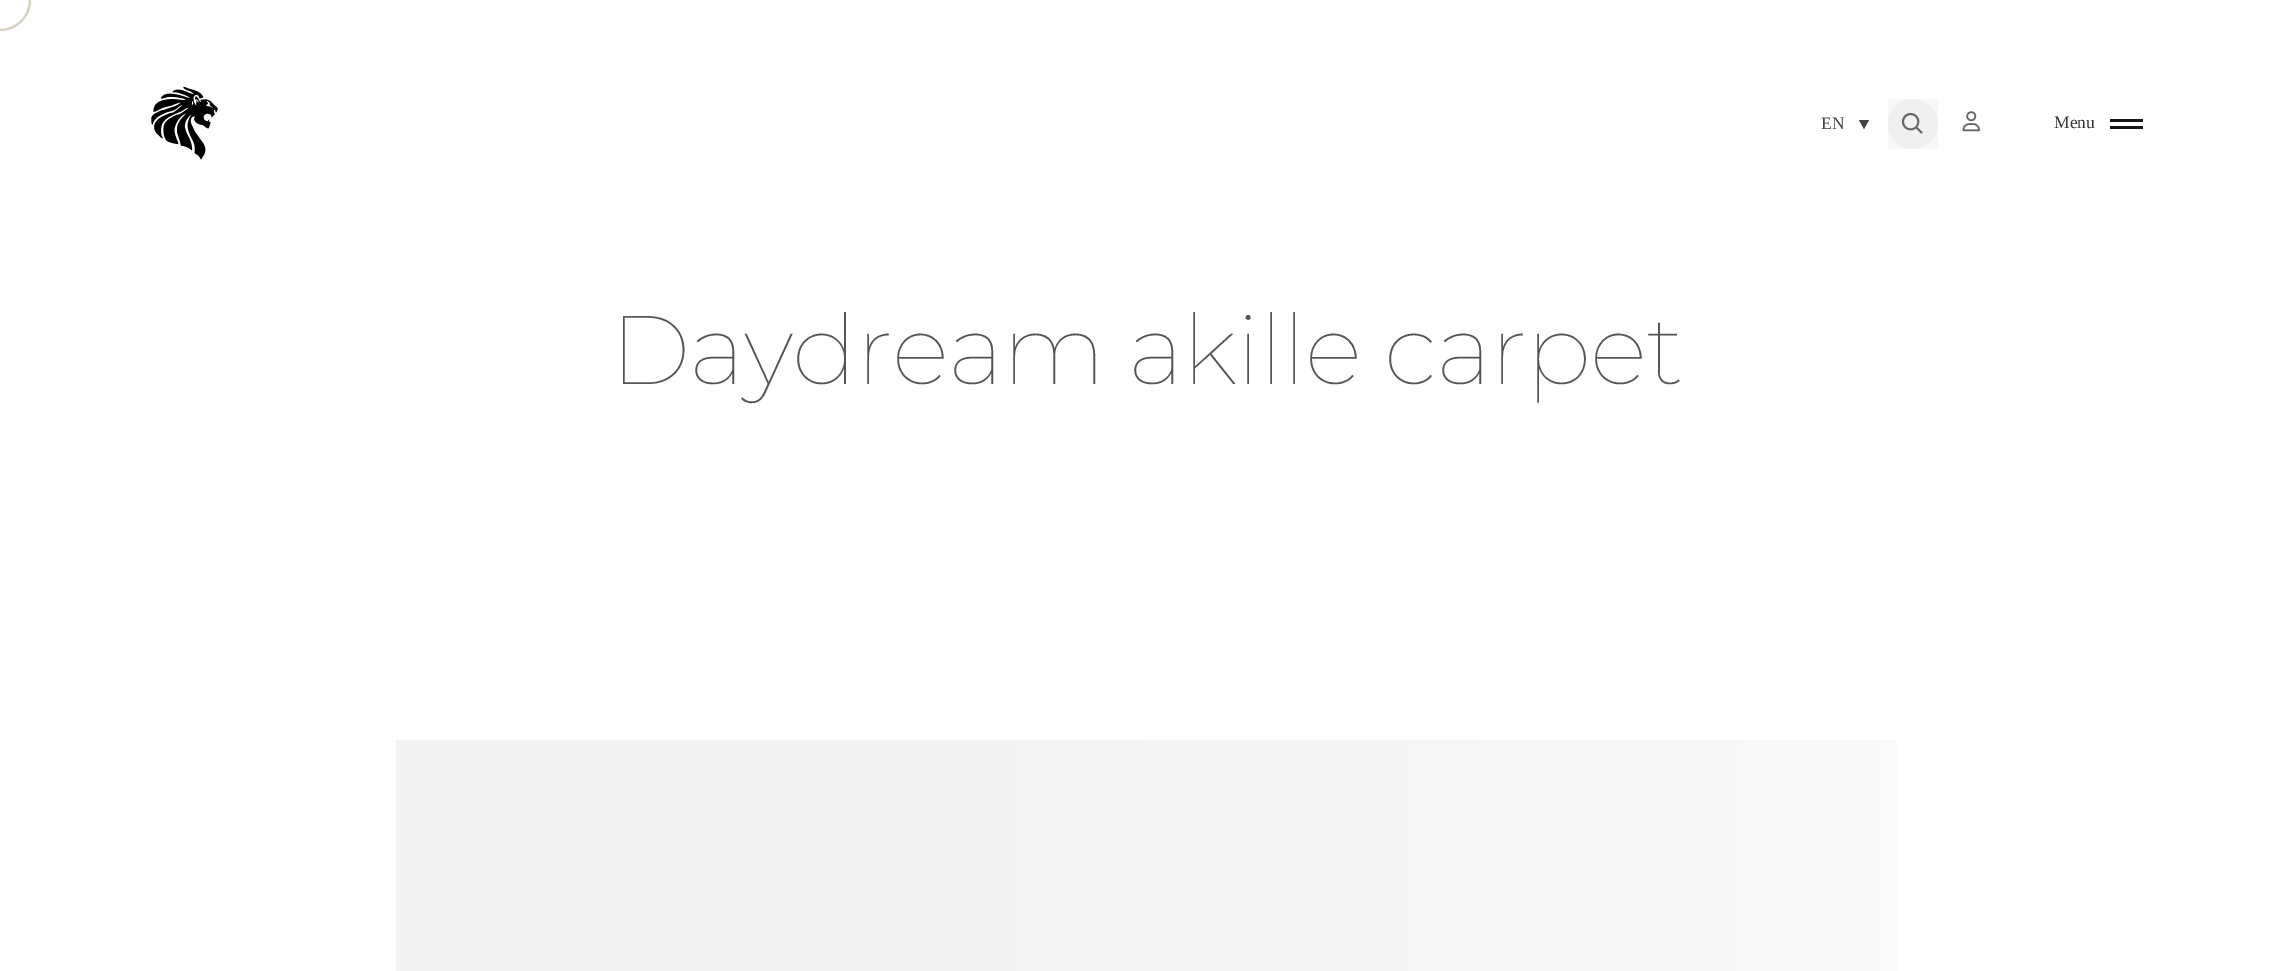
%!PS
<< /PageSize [2292 971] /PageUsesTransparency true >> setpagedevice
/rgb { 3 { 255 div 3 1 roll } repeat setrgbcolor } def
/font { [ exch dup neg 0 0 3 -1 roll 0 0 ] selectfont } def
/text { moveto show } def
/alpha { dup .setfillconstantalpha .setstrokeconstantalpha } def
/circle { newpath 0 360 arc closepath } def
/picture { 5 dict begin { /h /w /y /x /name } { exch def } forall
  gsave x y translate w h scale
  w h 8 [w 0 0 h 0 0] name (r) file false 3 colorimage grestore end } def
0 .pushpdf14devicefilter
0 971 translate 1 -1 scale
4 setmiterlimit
255 255 255 rgb
0 0 2292 971 rectfill
(img_01.rgb) 0 0 31 31 picture
(img_02.rgb) 151 86 67 74 picture
68 68 68 rgb
1859 120 moveto 10 0 rlineto -5 9 rlineto closepath fill
247 247 247 rgb
1913 124 25 circle fill
0.03 alpha
0 0 0 rgb
1888 99 50 50 rectfill
1 alpha
(img_03.rgb) 1901 113 22 21 picture
(img_04.rgb) 1962 111 18 21 picture
24 24 24 rgb
2110 119 33 3 rectfill
2110 126 33 3 rectfill
(img_05.rgb) 396 740 1501 231 picture
/LiberationSerif-Regular 17.5 font
68 68 68 rgb
(EN) 1821 129 text
51 51 51 rgb
(Menu) 2054 128 text
/Montserrat-Thin 97.25 font
85 85 85 rgb
610 384 moveto -1.25 0 (Daydream akille carpet) ashow
.poppdf14devicefilter showpage
